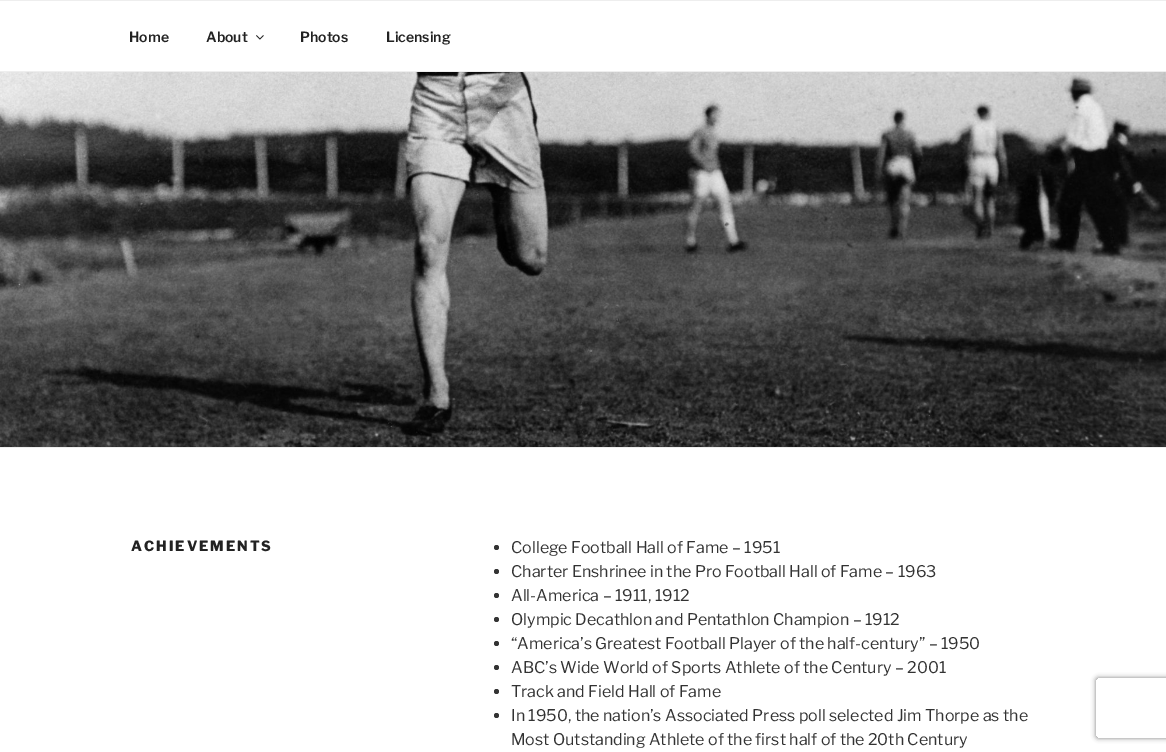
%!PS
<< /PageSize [1166 752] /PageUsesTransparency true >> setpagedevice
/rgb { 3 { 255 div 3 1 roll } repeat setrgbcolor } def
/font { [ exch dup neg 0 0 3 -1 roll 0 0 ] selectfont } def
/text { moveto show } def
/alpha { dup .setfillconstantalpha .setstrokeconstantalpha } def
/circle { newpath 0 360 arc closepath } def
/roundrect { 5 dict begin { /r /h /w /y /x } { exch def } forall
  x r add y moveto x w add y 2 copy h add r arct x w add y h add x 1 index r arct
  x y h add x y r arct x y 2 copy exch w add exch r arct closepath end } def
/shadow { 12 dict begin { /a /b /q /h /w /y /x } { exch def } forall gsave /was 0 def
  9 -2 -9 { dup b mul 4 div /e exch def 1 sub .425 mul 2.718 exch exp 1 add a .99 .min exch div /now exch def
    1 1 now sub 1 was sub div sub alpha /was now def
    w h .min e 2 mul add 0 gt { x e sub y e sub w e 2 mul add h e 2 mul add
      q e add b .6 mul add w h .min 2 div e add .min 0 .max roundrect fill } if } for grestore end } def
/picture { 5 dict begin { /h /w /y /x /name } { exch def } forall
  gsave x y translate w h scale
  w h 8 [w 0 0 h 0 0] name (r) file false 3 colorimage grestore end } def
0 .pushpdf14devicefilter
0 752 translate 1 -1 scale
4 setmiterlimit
255 255 255 rgb
0 0 1166 752 rectfill
238 238 238 rgb
0 0 1166 1 rectfill
0 71 1166 1 rectfill
(img_01.rgb) 256 35 8 5 picture
0 447 1166 1 rectfill
(img_02.rgb) 0 72 1166 375 picture
51 51 51 rgb
496.5 547.5 2.5 circle fill
496.5 571.5 2.5 circle fill
496.5 595.5 2.5 circle fill
496.5 619.5 2.5 circle fill
496.5 643.5 2.5 circle fill
496.5 667.5 2.5 circle fill
496.5 691.5 2.5 circle fill
496.5 715.5 2.5 circle fill
gsave
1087 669 moveto 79 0 rlineto 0 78 rlineto -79 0 rlineto closepath 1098 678 moveto 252 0 rlineto 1 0 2 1 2 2 rcurveto 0 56 rlineto 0 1 -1 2 -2 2 rcurveto -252 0 rlineto -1 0 -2 -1 -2 -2 rcurveto 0 -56 rlineto 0 -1 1 -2 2 -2 rcurveto closepath eoclip newpath
128 128 128 rgb
1096 678 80 60 2 2.5 1 shadow
grestore
/LibreFranklin-SemiBold 14 font
34 34 34 rgb
(Home) 129 42 text
(About) 206 42 text
(Photos) 300 42 text
(Licensing) 386 42 text
/LibreFranklin-ExtraBold 14 font
131 551 moveto 2 0 (ACHIEVEMENTS) ashow
/LibreFranklin-Regular 16 font
51 51 51 rgb
(College Football Hall of Fame – 1951) 511 553 text
(Charter Enshrinee in the Pro Football Hall of Fame – 1963) 511 577 text
(All-America – 1911, 1912) 511 601 text
(Olympic Decathlon and Pentathlon Champion – 1912) 511 625 text
(“America’s Greatest Football Player of the half-century” – 1950) 511 649 text
(ABC’s Wide World of Sports Athlete of the Century – 2001) 511 673 text
(Track and Field Hall of Fame) 511 697 text
(In 1950, the nation’s Associated Press poll selected Jim Thorpe as the) 511 721 text
(Most Outstanding Athlete of the first half of the 20th Century) 511 745 text
.poppdf14devicefilter showpage
